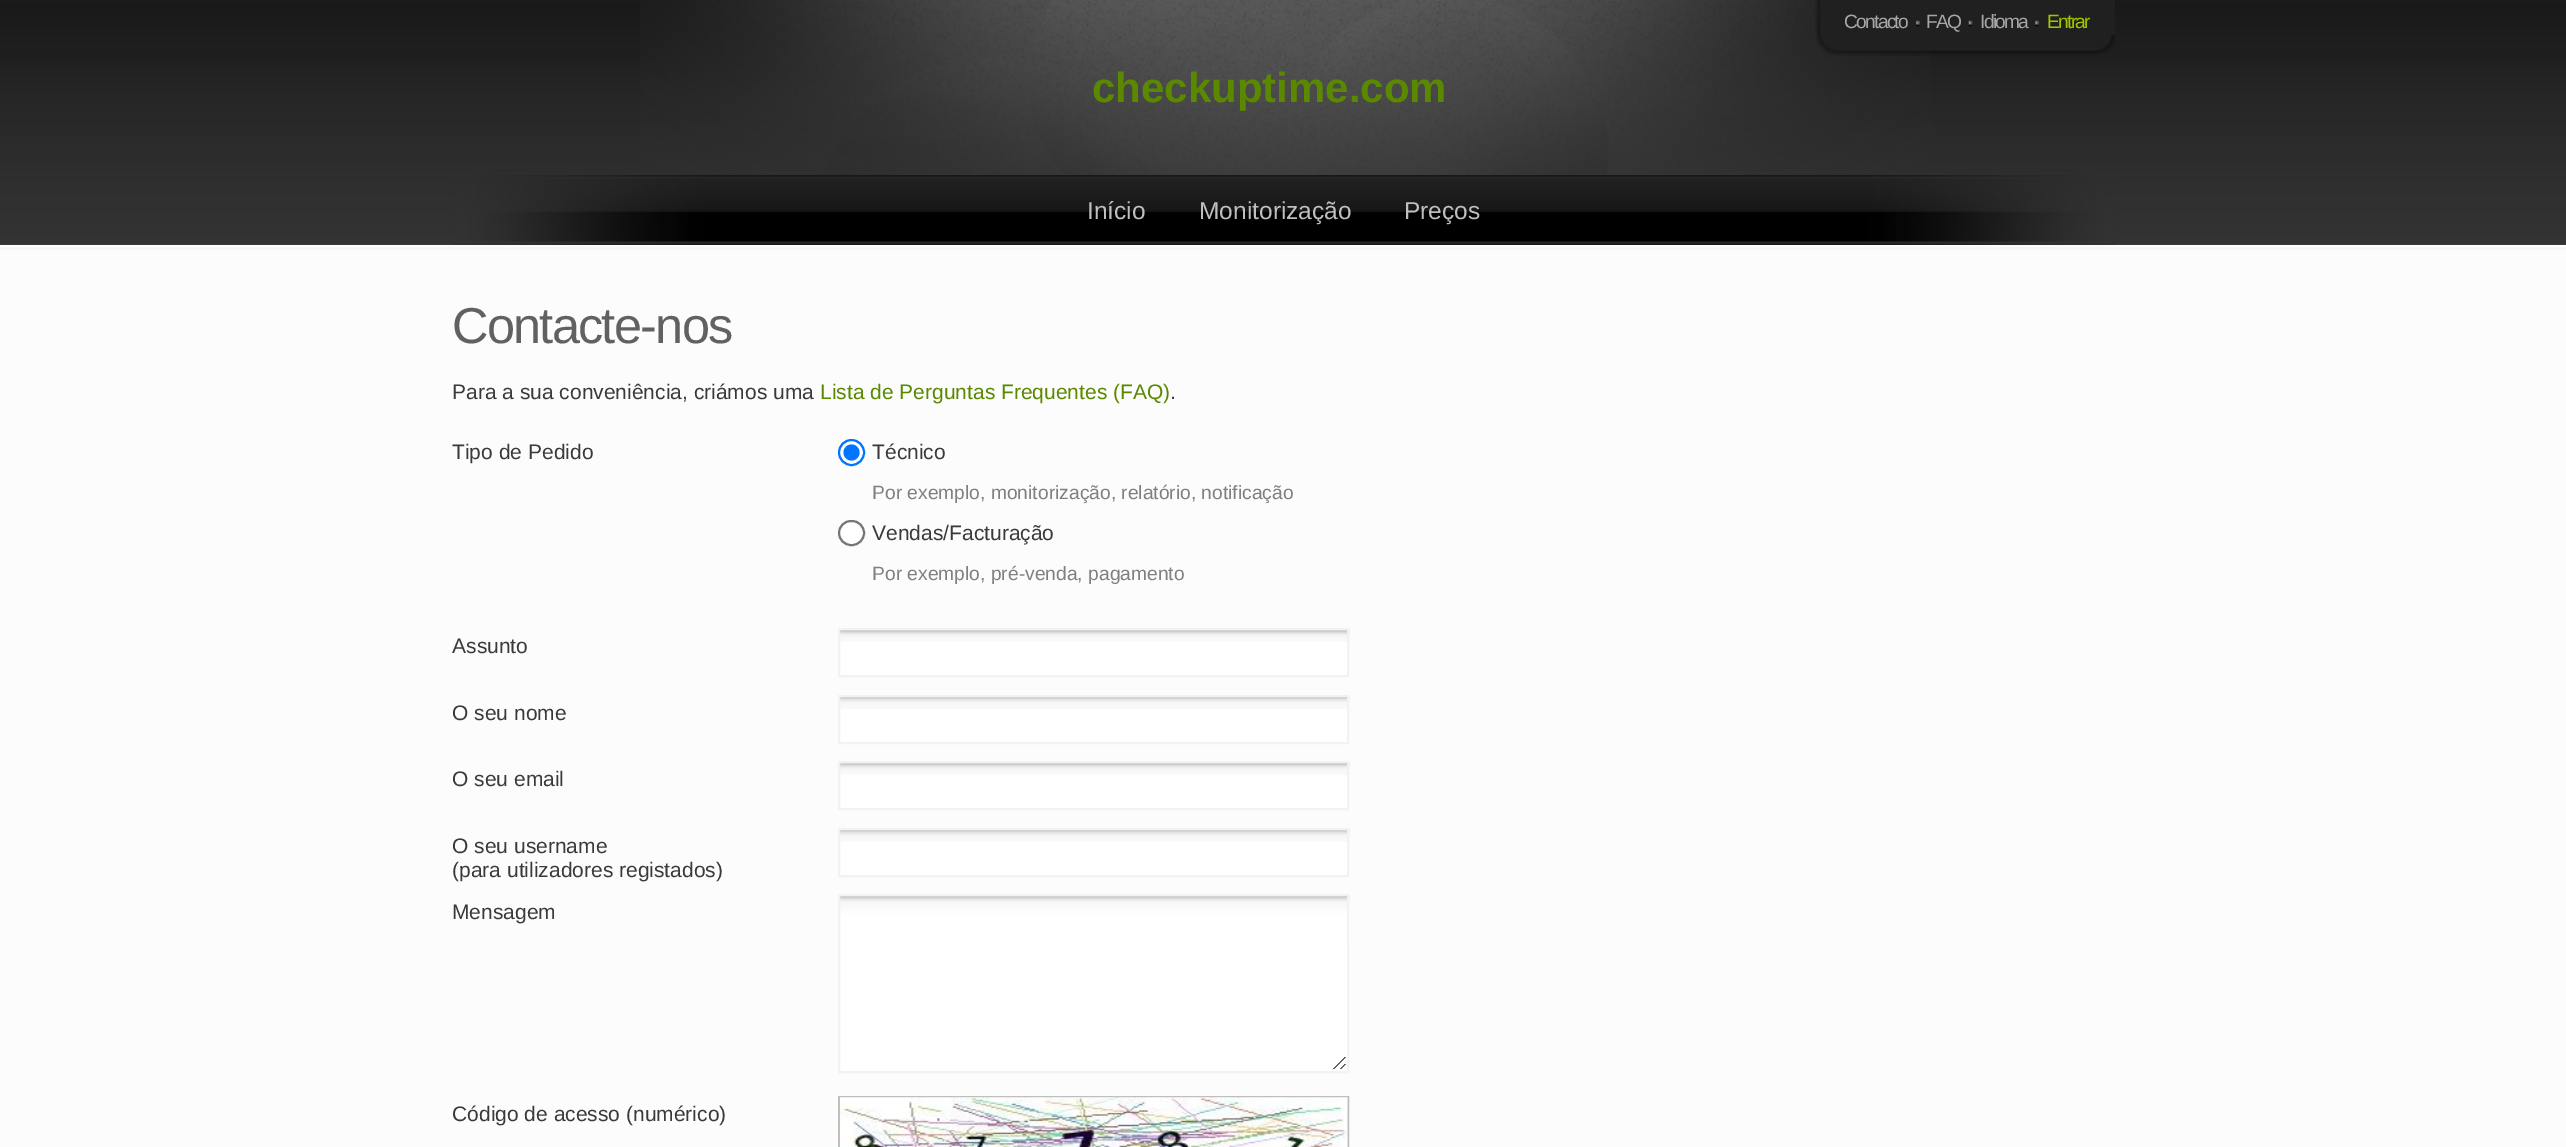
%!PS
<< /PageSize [2566 1147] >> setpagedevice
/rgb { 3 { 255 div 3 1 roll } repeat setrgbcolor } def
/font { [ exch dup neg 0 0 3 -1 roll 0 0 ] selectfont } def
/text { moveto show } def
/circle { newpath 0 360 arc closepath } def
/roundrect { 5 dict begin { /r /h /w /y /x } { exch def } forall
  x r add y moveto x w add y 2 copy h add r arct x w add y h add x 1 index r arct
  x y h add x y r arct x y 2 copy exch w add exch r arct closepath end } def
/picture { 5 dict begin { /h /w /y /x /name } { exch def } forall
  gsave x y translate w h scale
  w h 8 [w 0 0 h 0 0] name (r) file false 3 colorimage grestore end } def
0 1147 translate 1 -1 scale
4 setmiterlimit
255 255 255 rgb
0 0 2566 1147 rectfill
(img_01.rgb) 0 0 2566 245 picture
(img_02.rgb) 640 0 1291 175 picture
(img_03.rgb) 1815 0 300 35 picture
(img_04.rgb) 1916 20 4 7 picture
(img_05.rgb) 1968 20 5 7 picture
(img_04.rgb) 2035 20 4 7 picture
(img_06.rgb) 1816 35 282 21 picture
(img_07.rgb) 2098 35 17 19 picture
(img_08.rgb) 453 175 1663 70 picture
252 252 252 rgb
0 245 2566 902 rectfill
245 246 246 rgb
0 247 2566 3 rectfill
255 255 255 rgb
851.5 452.5 12.5 circle gsave fill grestore
0 117 255 rgb
2 setlinewidth
stroke
851.5 452.5 8 circle fill
255 255 255 rgb
839 521 25 24 12 roundrect gsave fill grestore
118 118 118 rgb
stroke
255 255 255 rgb
840 642 507 33 rectfill
(img_09.rgb) 840 630 510 12 picture
242 242 242 rgb
839 629 509 47 rectstroke
255 255 255 rgb
840 709 507 33 rectfill
(img_10.rgb) 840 696 510 13 picture
242 242 242 rgb
839 696 509 47 rectstroke
255 255 255 rgb
840 775 507 33 rectfill
(img_09.rgb) 840 763 510 12 picture
242 242 242 rgb
839 762 509 47 rectstroke
255 255 255 rgb
840 842 507 33 rectfill
(img_10.rgb) 840 829 510 13 picture
242 242 242 rgb
839 829 509 47 rectstroke
255 255 255 rgb
840 945 507 126 rectfill
(img_11.rgb) 840 896 510 173 picture
242 242 242 rgb
839 895 509 177 rectstroke
191 191 191 rgb
839 1097 509 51 rectstroke
(img_12.rgb) 840 1097 508 50 picture
/LiberationSans-Regular 19.25 font
166 166 166 rgb
1844 28 moveto -1.75 0 (Contacto) ashow
1926 28 moveto -1.75 0 (FAQ) ashow
1980 28 moveto -1.75 0 (Idioma) ashow
159 199 0 rgb
2047 28 moveto -1.75 0 (Entrar) ashow
/LiberationSans-Bold 42 font
90 137 0 rgb
(checkuptime.com) 1092 102 text
/LiberationSans-Regular 24.5 font
191 191 191 rgb
(Início) 1087 219 text
(Monitorização) 1199 219 text
(Preços) 1404 219 text
/LiberationSans-Regular 50.5 font
97 97 97 rgb
452 343 moveto -1.75 0 (Contacte-nos) ashow
/LiberationSans-Regular 21 font
58 58 58 rgb
(Para a sua conveniência, criámos uma) 452 399 text
90 137 0 rgb
(Lista de Perguntas Frequentes \(FAQ\)) 820 399 text
58 58 58 rgb
(.) 1170 399 text
(Tipo de Pedido) 452 459 text
(Técnico) 872 459 text
/LiberationSans-Regular 19.25 font
128 128 128 rgb
(Por exemplo, monitorização, relatório, notificação) 872 499 text
/LiberationSans-Regular 21 font
58 58 58 rgb
(Vendas/Facturação) 872 540 text
/LiberationSans-Regular 19.25 font
128 128 128 rgb
(Por exemplo, pré-venda, pagamento) 872 580 text
/LiberationSans-Regular 21 font
58 58 58 rgb
(Assunto) 452 653 text
(O seu nome) 452 720 text
(O seu email) 452 786 text
(O seu username) 452 853 text
(\(para utilizadores registados\)) 452 877 text
(Mensagem) 452 919 text
(Código de acesso \(numérico\)) 452 1121 text
showpage
